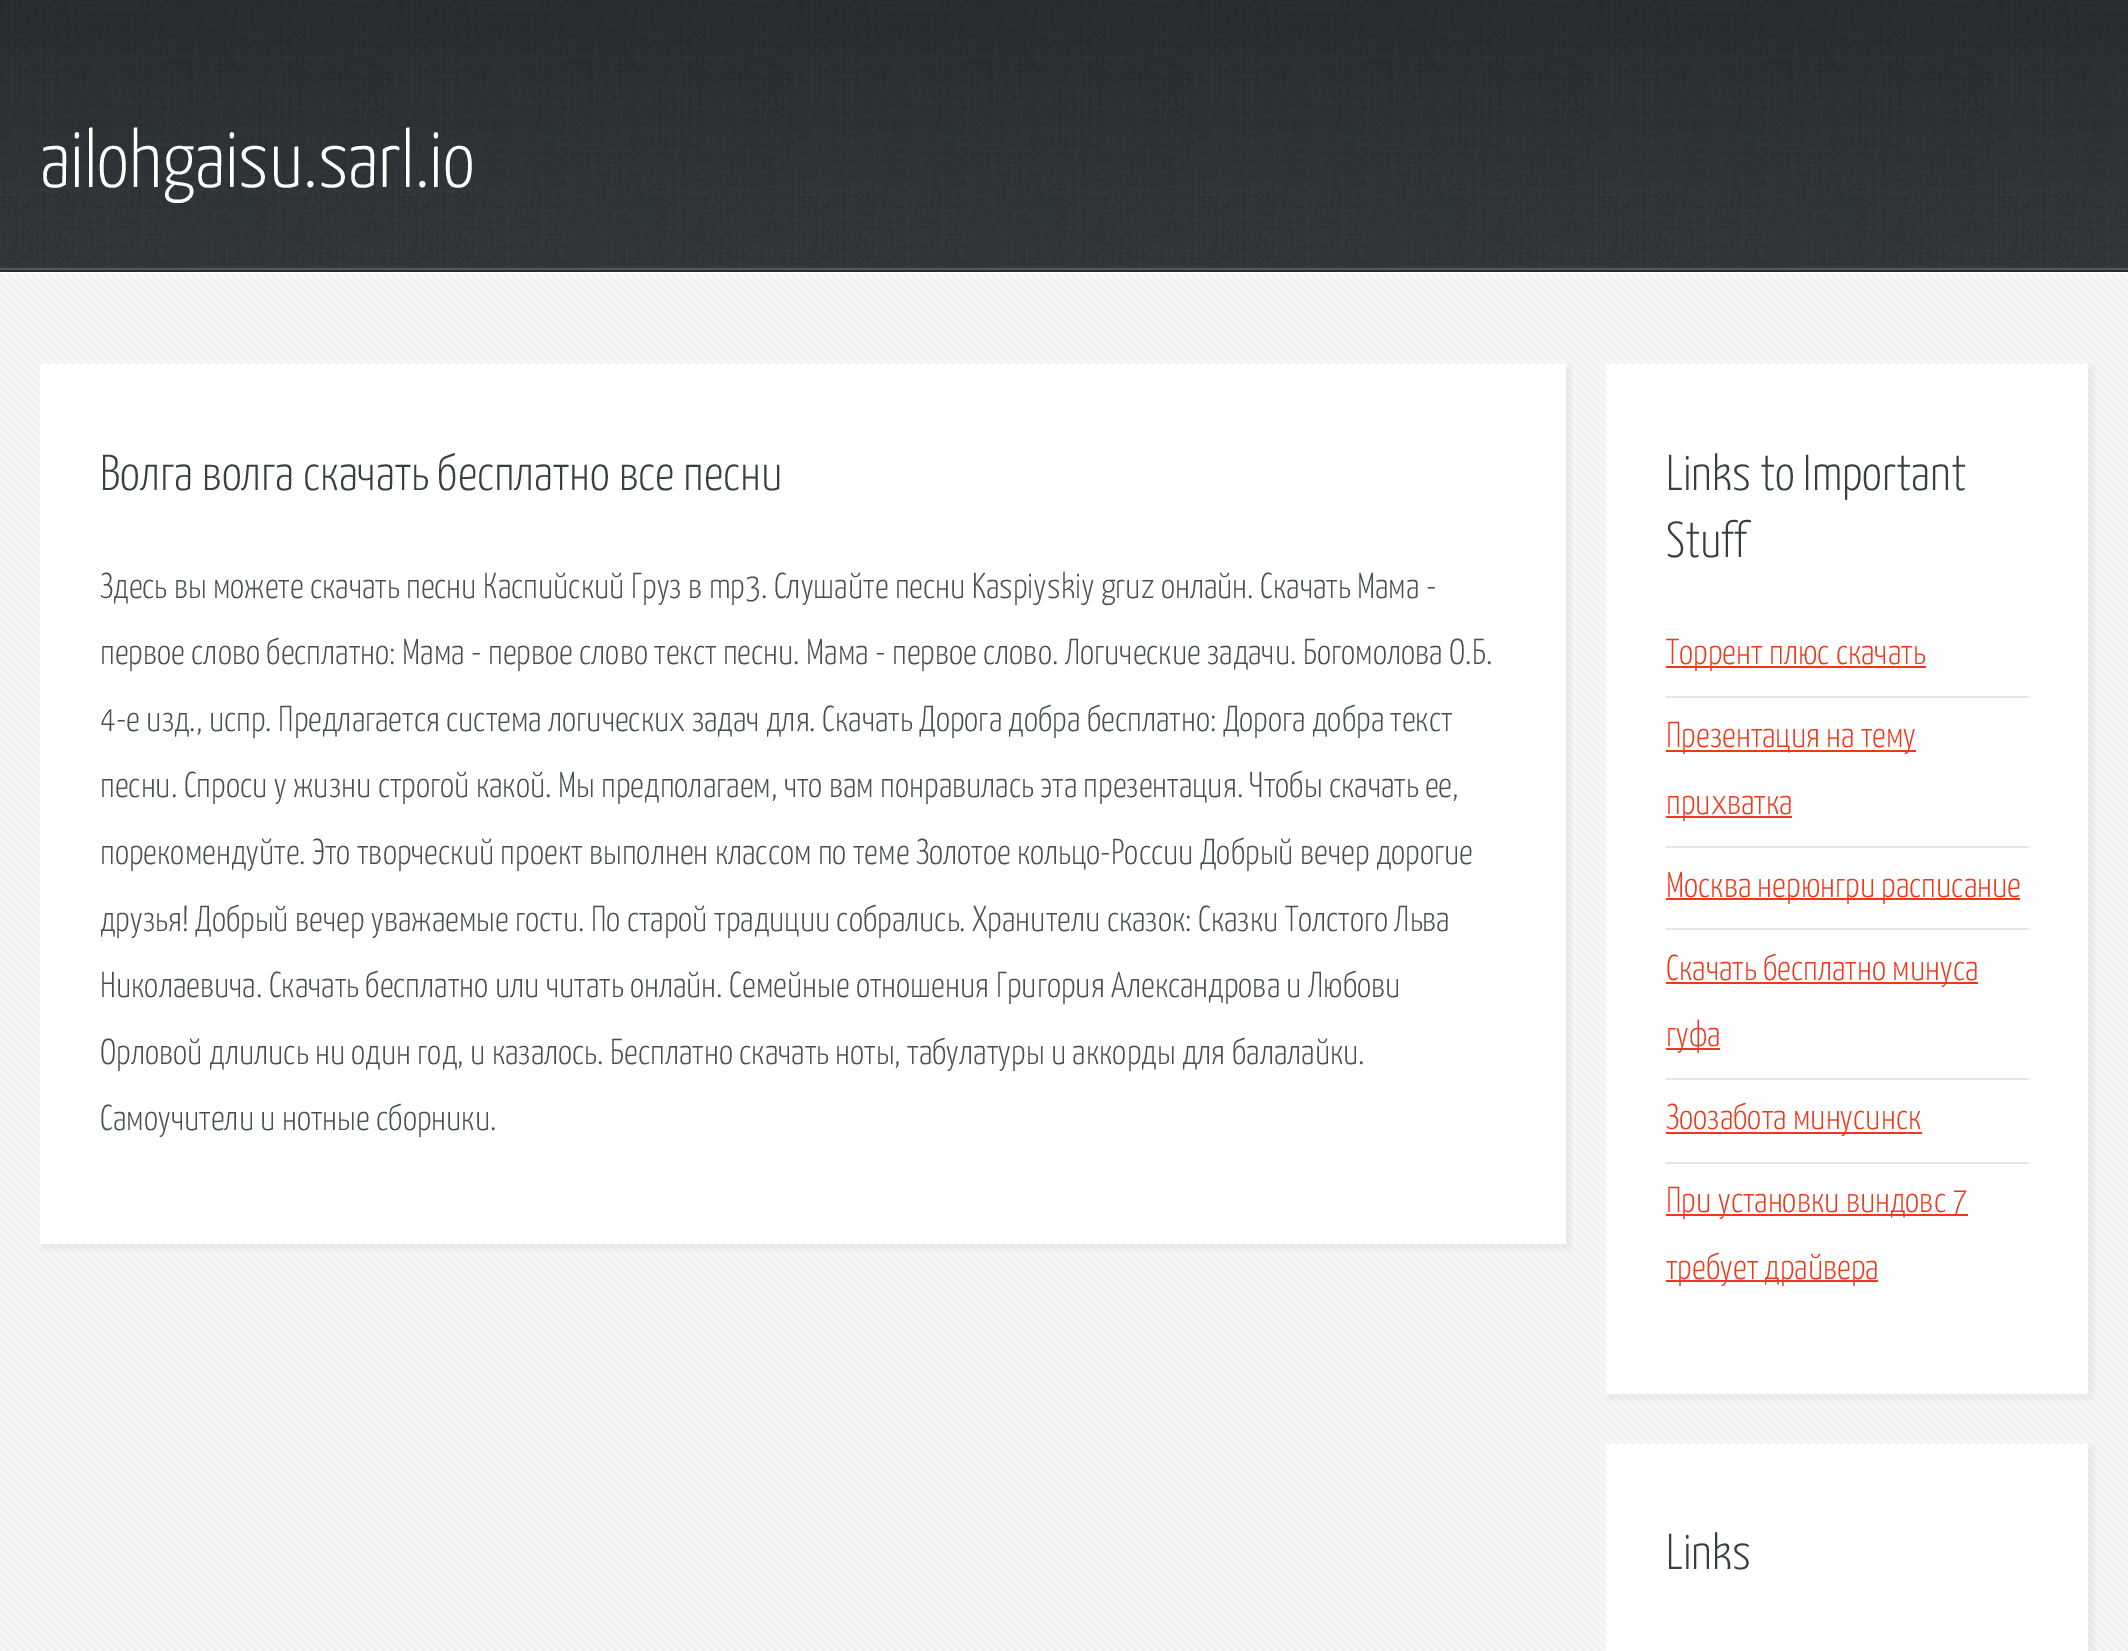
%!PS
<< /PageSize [2128 1651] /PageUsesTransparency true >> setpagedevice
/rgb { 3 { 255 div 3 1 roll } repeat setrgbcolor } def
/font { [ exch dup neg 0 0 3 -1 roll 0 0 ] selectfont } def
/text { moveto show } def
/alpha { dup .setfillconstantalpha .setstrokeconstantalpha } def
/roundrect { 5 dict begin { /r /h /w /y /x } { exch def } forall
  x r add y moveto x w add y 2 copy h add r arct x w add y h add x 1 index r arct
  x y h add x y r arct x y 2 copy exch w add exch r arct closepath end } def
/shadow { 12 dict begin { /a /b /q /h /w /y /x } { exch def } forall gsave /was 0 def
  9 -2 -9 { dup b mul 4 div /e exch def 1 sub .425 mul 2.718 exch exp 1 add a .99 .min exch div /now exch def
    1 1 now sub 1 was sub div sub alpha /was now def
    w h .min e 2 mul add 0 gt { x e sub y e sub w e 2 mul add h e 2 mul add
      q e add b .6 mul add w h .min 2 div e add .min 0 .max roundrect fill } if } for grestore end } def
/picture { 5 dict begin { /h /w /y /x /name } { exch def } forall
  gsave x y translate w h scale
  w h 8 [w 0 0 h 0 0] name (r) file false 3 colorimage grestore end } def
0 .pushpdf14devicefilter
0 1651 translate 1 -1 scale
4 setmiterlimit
247 247 247 rgb
0 0 2128 1651 rectfill
(img_01.rgb) 0 0 2128 268 picture
81 87 90 rgb
0 268 2128 2 rectfill
39 45 48 rgb
0 270 2128 2 rectfill
(img_02.rgb) 0 274 2128 1377 picture
255 255 255 rgb
0 272 2128 2 rectfill
128 128 128 rgb
42 366 1530 884 0 2 0.1 shadow
255 255 255 rgb
40 364 1526 880 rectfill
128 128 128 rgb
1608 366 486 1034 0 2 0.1 shadow
255 255 255 rgb
1606 364 482 1030 rectfill
226 230 232 rgb
1666 696 362 2 rectfill
237 57 27 rgb
1666 666 260 2 rectfill
226 230 232 rgb
1666 846 362 2 rectfill
237 57 27 rgb
1666 750 250 2 rectfill
1666 816 126 2 rectfill
226 230 232 rgb
1666 928 362 2 rectfill
237 57 27 rgb
1666 898 354 2 rectfill
226 230 232 rgb
1666 1078 362 2 rectfill
237 57 27 rgb
1666 982 312 2 rectfill
1666 1048 54 2 rectfill
226 230 232 rgb
1666 1162 362 2 rectfill
237 57 27 rgb
1666 1132 256 2 rectfill
1666 1214 302 2 rectfill
1666 1280 212 2 rectfill
128 128 128 rgb
1608 1446 486 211 0 2 0.1 shadow
255 255 255 rgb
1606 1444 482 207 rectfill
/YanoneKaffeesatz-Light 81 font
(ailohgaisu.sarl.io) 40 187 text
/YanoneKaffeesatz-Light 50.4 font
55 63 66 rgb
(Волга волга скачать бесплатно все песни) 100 490 text
/YanoneKaffeesatz-Light 36 font
71 79 81 rgb
(Здесь вы можете скачать песни Каспийский Груз в mp3. Слушайте песни Kaspiyskiy gruz онлайн. Скачать Мама -) 100 598 text
(первое слово бесплатно: Мама - первое слово текст песни. Мама - первое слово. Логические задачи. Богомолова О.Б.) 100 664 text
(4-е изд., испр. Предлагается система логических задач для. Скачать Дорога добра бесплатно: Дорога добра текст) 100 731 text
(песни. Спроси у жизни строгой какой. Мы предполагаем, что вам понравилась эта презентация. Чтобы скачать ее,) 100 797 text
(порекомендуйте. Это творческий проект выполнен классом по теме Золотое кольцо-России Добрый вечер дорогие) 100 864 text
(друзья! Добрый вечер уважаемые гости. По старой традиции собрались. Хранители сказок: Сказки Толстого Льва) 100 931 text
(Николаевича. Скачать бесплатно или читать онлайн. Семейные отношения Григория Александрова и Любови) 100 997 text
(Орловой длились ни один год, и казалось. Бесплатно скачать ноты, табулатуры и аккорды для балалайки.) 100 1064 text
(Самоучители и нотные сборники.) 100 1130 text
/YanoneKaffeesatz-Light 50.4 font
55 63 66 rgb
(Links to Important) 1666 490 text
(Stuff) 1666 557 text
/YanoneKaffeesatz-Light 36 font
237 57 27 rgb
(Торрент плюс скачать) 1666 664 text
(Презентация на тему) 1666 747 text
(прихватка) 1666 814 text
(Москва нерюнгри расписание) 1666 897 text
(Скачать бесплатно минуса) 1666 980 text
(гуфа) 1666 1046 text
(Зоозабота минусинск) 1666 1129 text
(При установки виндовс 7) 1666 1212 text
(требует драйвера) 1666 1279 text
/YanoneKaffeesatz-Light 50.4 font
55 63 66 rgb
(Links) 1666 1569 text
.poppdf14devicefilter showpage
